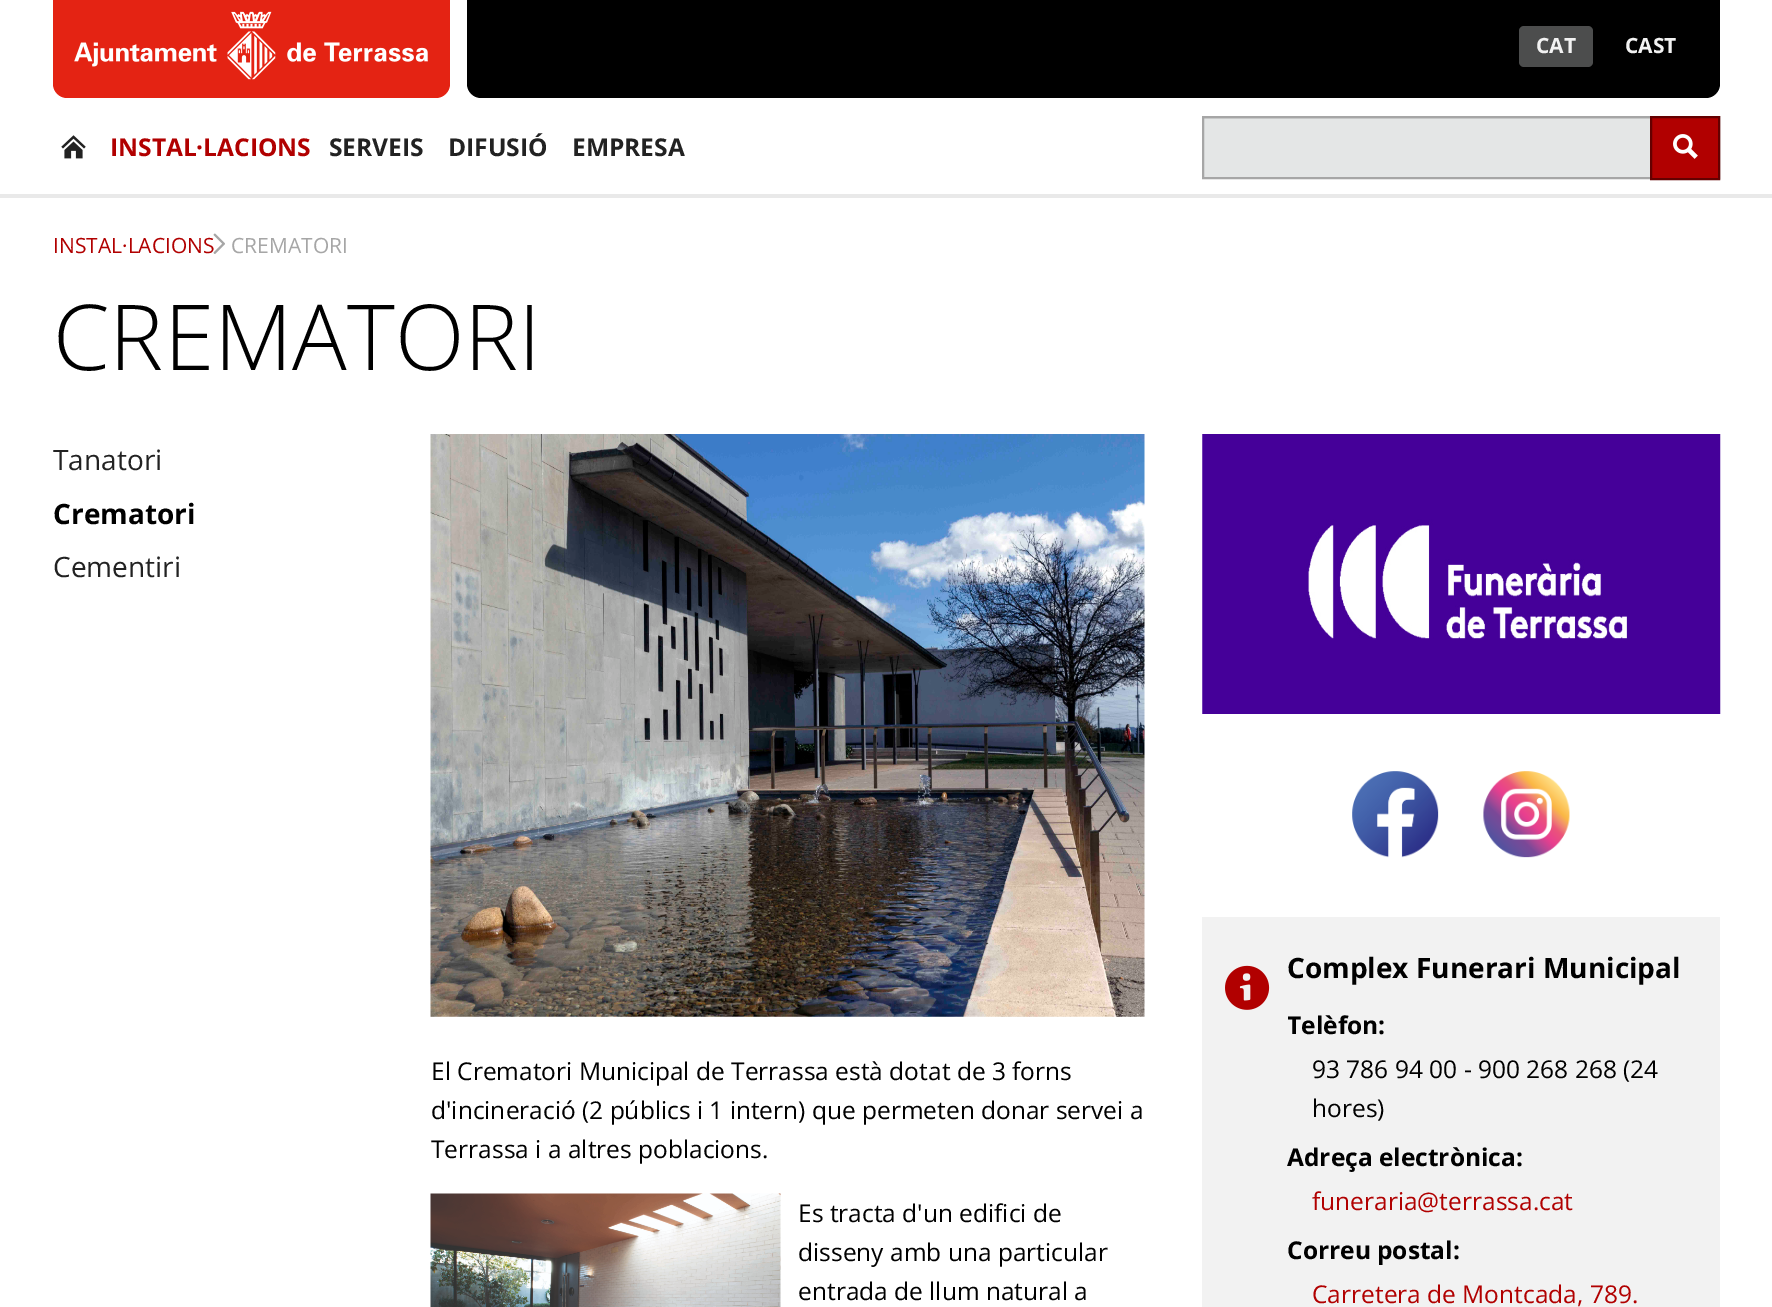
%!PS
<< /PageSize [1772 1307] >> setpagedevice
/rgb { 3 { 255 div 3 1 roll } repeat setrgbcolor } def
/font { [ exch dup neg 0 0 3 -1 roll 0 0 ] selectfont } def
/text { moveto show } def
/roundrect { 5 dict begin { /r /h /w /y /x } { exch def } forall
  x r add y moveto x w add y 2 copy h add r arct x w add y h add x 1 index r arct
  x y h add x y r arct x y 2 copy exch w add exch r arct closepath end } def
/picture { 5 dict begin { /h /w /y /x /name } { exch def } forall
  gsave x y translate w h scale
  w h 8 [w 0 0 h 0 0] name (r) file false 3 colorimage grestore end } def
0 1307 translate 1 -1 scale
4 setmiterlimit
255 255 255 rgb
0 0 1772 1307 rectfill
233 233 233 rgb
0 194 1772 4 rectfill
228 35 19 rgb
53 0 moveto 397 0 rlineto 0 84 rlineto 0 7.5 -6.5 14 -14 14 rcurveto -369 0 rlineto -7.5 0 -14 -6.5 -14 -14 rcurveto closepath fill
(img_01.rgb) 74 11 354 69 picture
0 0 0 rgb
467 0 moveto 1253 0 rlineto 0 84 rlineto 0 7.5 -6.5 14 -14 14 rcurveto -1225 0 rlineto -7.5 0 -14 -6.5 -14 -14 rcurveto closepath fill
76 77 77 rgb
1519 26 74 41 5 roundrect fill
(img_02.rgb) 61 135 25 24 picture
228 230 230 rgb
1204 119 446 58 rectfill
211 213 213 rgb
1204 118 446 1 rectfill
166 166 166 rgb
2 setlinewidth
1203 117 516 61 rectstroke
177 0 0 rgb
1651 117 moveto 68 0 rlineto 0 62 rlineto -68 0 rlineto closepath gsave fill grestore
100 0 0 rgb
stroke
(img_03.rgb) 1673 134 25 25 picture
(img_04.rgb) 213 233 12 21 picture
(img_05.rgb) 430 434 715 583 picture
(img_06.rgb) 430 1193 351 114 picture
(img_07.rgb) 1202 434 519 280 picture
(img_08.rgb) 1352 771 87 87 picture
(img_09.rgb) 1483 771 87 87 picture
242 242 242 rgb
1202 917 518 390 rectfill
(img_10.rgb) 1225 965 45 45 picture
/OpenSans-Bold 21 font
(CAT) 1536 53 text
(CAST) 1625 53 text
/OpenSans-Bold 24.5 font
177 0 0 rgb
(INSTAL·LACIONS) 110 156 text
34 34 34 rgb
(SERVEIS) 329 156 text
(DIFUSIÓ) 448 156 text
(EMPRESA) 572 156 text
/OpenSans-Regular 21 font
177 0 0 rgb
(INSTAL·LACIONS) 53 253 text
166 166 166 rgb
(CREMATORI) 231 253 text
/OpenSans-Light 91 font
0 0 0 rgb
(CREMATORI) 53 370 text
/OpenSans-Regular 28 font
34 34 34 rgb
(Tanatori) 53 470 text
/OpenSans-Bold 28 font
0 0 0 rgb
(Crematori) 53 524 text
/OpenSans-Regular 28 font
34 34 34 rgb
(Cementiri) 53 577 text
/OpenSans-Regular 24.5 font
0 0 0 rgb
(El Crematori Municipal de Terrassa està dotat de 3 forns) 431 1080 text
(d'incineració \(2 públics i 1 intern\) que permeten donar servei a) 431 1119 text
(Terrassa i a altres poblacions.) 431 1158 text
(Es tracta d'un edifici de) 798 1222 text
(disseny amb una particular) 798 1261 text
(entrada de llum natural a) 798 1300 text
/OpenSans-Bold 28 font
(Complex Funerari Municipal) 1287 978 text
gsave
1288 947 410 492 rectclip
/OpenSans-Bold 24.5 font
(Telèfon:) 1287 1034 text
grestore
/OpenSans-Regular 24.5 font
(93 786 94 00 - 900 268 268 \(24) 1312 1078 text
(hores\)) 1312 1117 text
/OpenSans-Bold 24.5 font
(Adreça electrònica:) 1287 1166 text
/OpenSans-Regular 24.5 font
177 0 0 rgb
(funeraria@terrassa.cat) 1312 1210 text
/OpenSans-Bold 24.5 font
0 0 0 rgb
(Correu postal:) 1287 1259 text
/OpenSans-Regular 24.5 font
177 0 0 rgb
(Carretera de Montcada, 789.) 1312 1303 text
showpage
